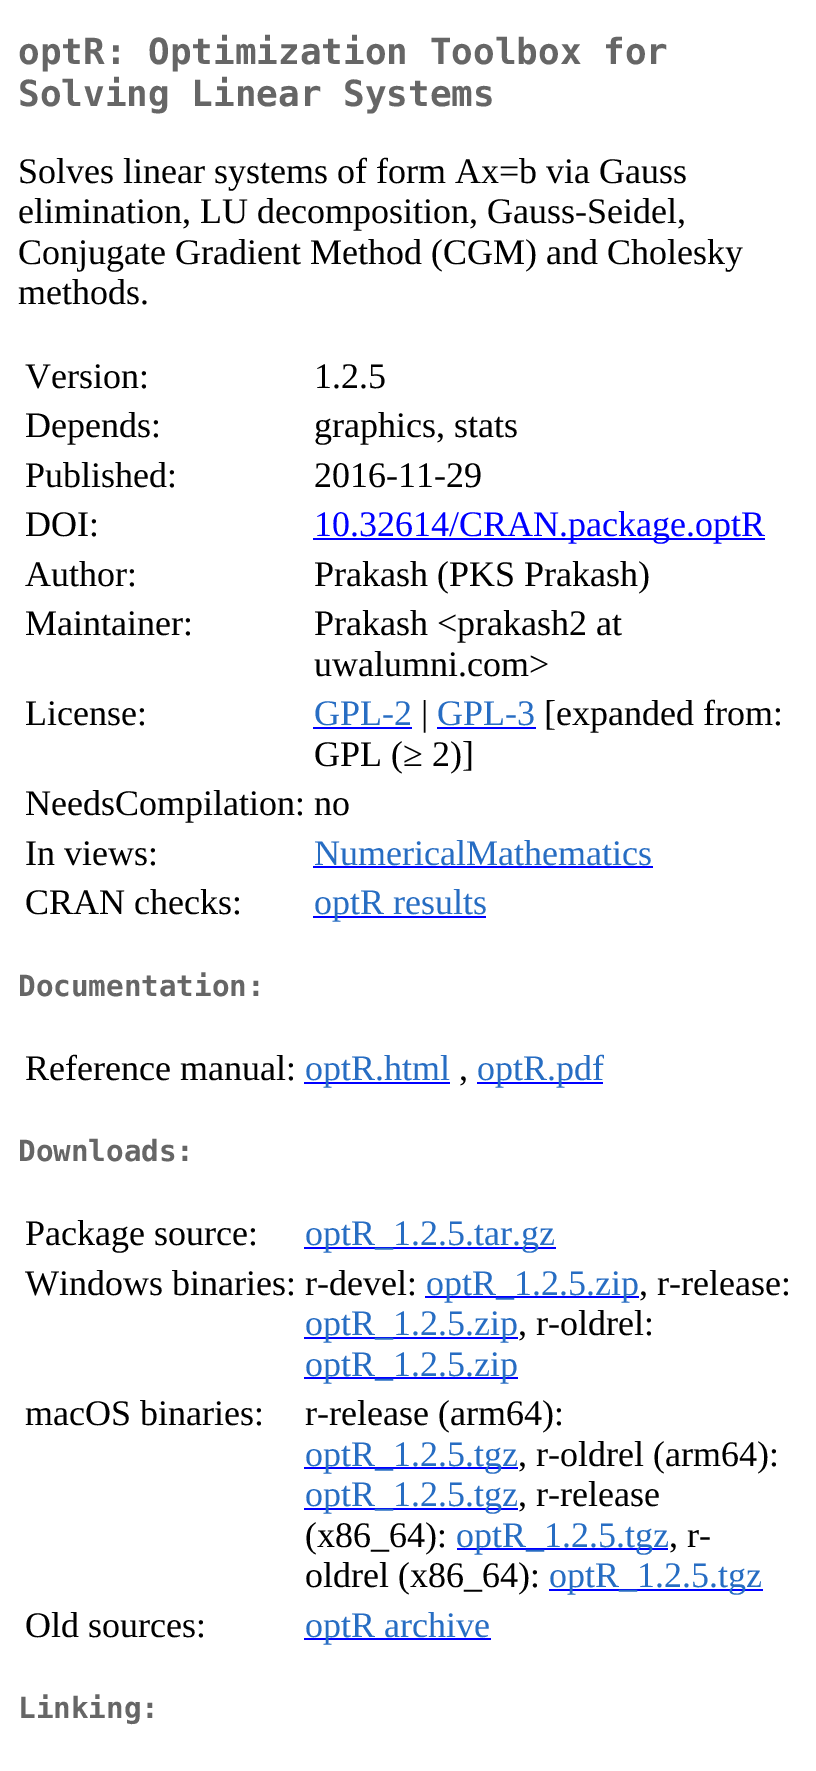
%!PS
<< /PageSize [816 1771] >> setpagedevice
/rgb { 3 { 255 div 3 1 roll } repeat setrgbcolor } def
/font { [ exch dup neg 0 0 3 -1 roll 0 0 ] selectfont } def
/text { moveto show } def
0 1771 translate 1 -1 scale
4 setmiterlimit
255 255 255 rgb
0 0 816 1771 rectfill
0 0 255 rgb
313 538 452 2 rectfill
313 727 99 2 rectfill
437 727 99 2 rectfill
313 866 340 2 rectfill
313 916 173 2 rectfill
304 1082 146 2 rectfill
477 1082 126 2 rectfill
304 1247 252 2 rectfill
425 1296 214 2 rectfill
304 1337 214 2 rectfill
304 1377 214 2 rectfill
304 1467 214 2 rectfill
304 1508 214 2 rectfill
457 1548 211 2 rectfill
549 1589 214 2 rectfill
304 1638 187 2 rectfill
/DejaVuSansMono-Bold 36 font
102 102 102 rgb
(optR: Optimization Toolbox for) 18 64 text
(Solving Linear Systems) 18 106 text
/LiberationSerif-Regular 36 font
0 0 0 rgb
(Solves linear systems of form Ax=b via Gauss) 18 183 text
(elimination, LU decomposition, Gauss-Seidel,) 18 223 text
(Conjugate Gradient Method \(CGM\) and Cholesky) 18 264 text
(methods.) 18 304 text
(Version:) 25 388 text
(1.2.5) 314 388 text
(Depends:) 25 437 text
(graphics, stats) 314 437 text
(Published:) 25 487 text
(2016-11-29) 314 487 text
(DOI:) 25 536 text
0 0 255 rgb
(10.32614/CRAN.package.optR) 314 536 text
0 0 0 rgb
(Author:) 25 586 text
(Prakash \(PKS Prakash\)) 314 586 text
(Maintainer:) 25 635 text
(Prakash <prakash2 at) 314 635 text
(uwalumni.com>) 314 676 text
(License:) 25 725 text
39 109 195 rgb
(GPL-2) 314 725 text
0 0 0 rgb
(|) 421 725 text
39 109 195 rgb
(GPL-3) 437 725 text
0 0 0 rgb
([expanded from:) 544 725 text
(GPL \(≥ 2\)]) 314 766 text
(NeedsCompilation: no) 25 815 text
(In views:) 25 865 text
39 109 195 rgb
(NumericalMathematics) 314 865 text
0 0 0 rgb
(CRAN checks:) 25 914 text
39 109 195 rgb
(optR results) 314 914 text
/DejaVuSansMono-Bold 29.25 font
102 102 102 rgb
(Documentation:) 18 996 text
/LiberationSerif-Regular 36 font
0 0 0 rgb
(Reference manual:) 25 1080 text
39 109 195 rgb
(optR.html) 305 1080 text
0 0 0 rgb
(,) 459 1080 text
39 109 195 rgb
(optR.pdf) 477 1080 text
/DejaVuSansMono-Bold 29.25 font
102 102 102 rgb
(Downloads:) 18 1161 text
/LiberationSerif-Regular 36 font
0 0 0 rgb
(Package source:) 25 1245 text
39 109 195 rgb
(optR_1.2.5.tar.gz) 305 1245 text
0 0 0 rgb
(Windows binaries: r-devel:) 25 1295 text
39 109 195 rgb
(optR_1.2.5.zip) 426 1295 text
0 0 0 rgb
(, r-release:) 639 1295 text
39 109 195 rgb
(optR_1.2.5.zip) 305 1335 text
0 0 0 rgb
(, r-oldrel:) 518 1335 text
39 109 195 rgb
(optR_1.2.5.zip) 305 1376 text
0 0 0 rgb
(macOS binaries:) 25 1425 text
(r-release \(arm64\):) 305 1425 text
39 109 195 rgb
(optR_1.2.5.tgz) 305 1466 text
0 0 0 rgb
(, r-oldrel \(arm64\):) 518 1466 text
39 109 195 rgb
(optR_1.2.5.tgz) 305 1506 text
0 0 0 rgb
(, r-release) 518 1506 text
(\(x86_64\):) 305 1547 text
39 109 195 rgb
(optR_1.2.5.tgz) 456 1547 text
0 0 0 rgb
(, r-) 669 1547 text
(oldrel \(x86_64\):) 305 1587 text
39 109 195 rgb
(optR_1.2.5.tgz) 549 1587 text
0 0 0 rgb
(Old sources:) 25 1637 text
39 109 195 rgb
(optR archive) 305 1637 text
/DejaVuSansMono-Bold 29.25 font
102 102 102 rgb
(Linking:) 18 1718 text
showpage
